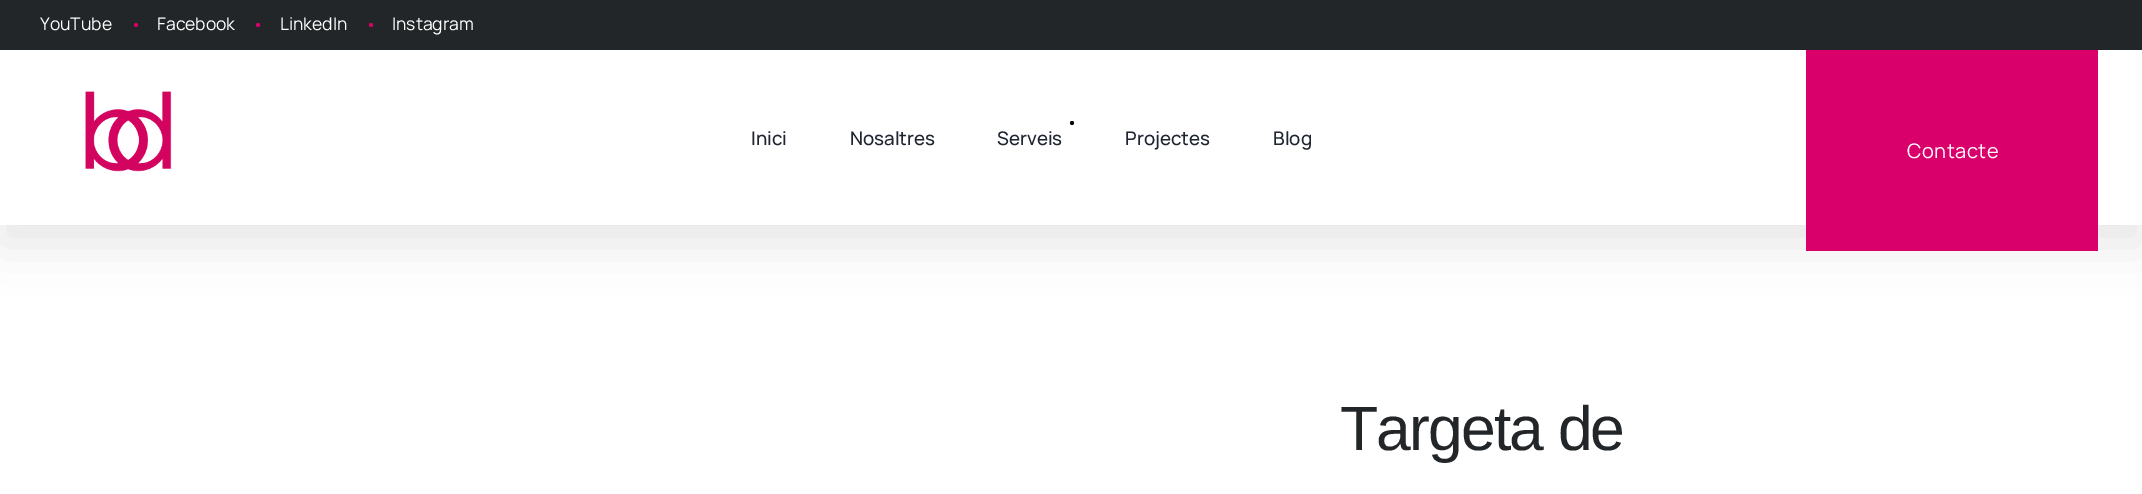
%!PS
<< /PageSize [2142 494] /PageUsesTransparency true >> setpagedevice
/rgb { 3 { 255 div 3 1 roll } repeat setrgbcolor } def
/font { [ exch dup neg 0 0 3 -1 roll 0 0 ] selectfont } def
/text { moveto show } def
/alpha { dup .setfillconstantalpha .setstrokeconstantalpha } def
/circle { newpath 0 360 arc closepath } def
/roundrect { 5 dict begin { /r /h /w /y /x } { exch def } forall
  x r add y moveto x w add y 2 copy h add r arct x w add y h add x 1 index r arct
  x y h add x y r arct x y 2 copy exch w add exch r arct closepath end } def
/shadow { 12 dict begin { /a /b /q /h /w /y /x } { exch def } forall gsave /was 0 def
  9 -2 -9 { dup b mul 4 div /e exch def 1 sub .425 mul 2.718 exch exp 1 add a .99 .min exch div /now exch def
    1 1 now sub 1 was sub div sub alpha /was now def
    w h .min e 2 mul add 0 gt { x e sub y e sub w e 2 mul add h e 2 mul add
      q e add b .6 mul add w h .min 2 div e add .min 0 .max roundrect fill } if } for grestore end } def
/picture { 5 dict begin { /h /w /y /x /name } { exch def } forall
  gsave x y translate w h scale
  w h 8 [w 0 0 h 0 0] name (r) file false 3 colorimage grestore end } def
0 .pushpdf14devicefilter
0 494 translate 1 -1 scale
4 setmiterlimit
255 255 255 rgb
0 0 2142 494 rectfill
34 38 40 rgb
0 0 2142 50 rectfill
217 0 108 rgb
136 25 2 circle fill
258 25 2 circle fill
371 25 2 circle fill
gsave
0 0 moveto 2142 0 rlineto 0 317 rlineto -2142 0 rlineto closepath 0 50 moveto 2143 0 rlineto 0 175 rlineto -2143 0 rlineto closepath eoclip newpath
0 0 0 rgb
0 69 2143 175 0 24 0.1 shadow
grestore
(img_01.rgb) 85 91 87 81 picture
0 0 0 rgb
1072 123 2 circle fill
217 0 108 rgb
1806 50 292 201 rectfill
/Manrope-Regular 17.5 font
255 255 255 rgb
(YouTube) 40 30 text
(Facebook) 157 30 text
(LinkedIn) 280 30 text
(Instagram) 392 30 text
/Manrope-Medium 18.75 font
31 37 49 rgb
(Inici) 751 145 text
(Nosaltres) 850 145 text
(Serveis) 997 145 text
(Projectes) 1125 145 text
(Blog) 1273 145 text
/Manrope-Regular 20 font
255 255 255 rgb
1907 158 moveto 0.5 0 (Contacte) ashow
/LiberationSans-Regular 62.5 font
34 38 40 rgb
1340 450 moveto -1.9 0 (Targeta de) ashow
.poppdf14devicefilter showpage
